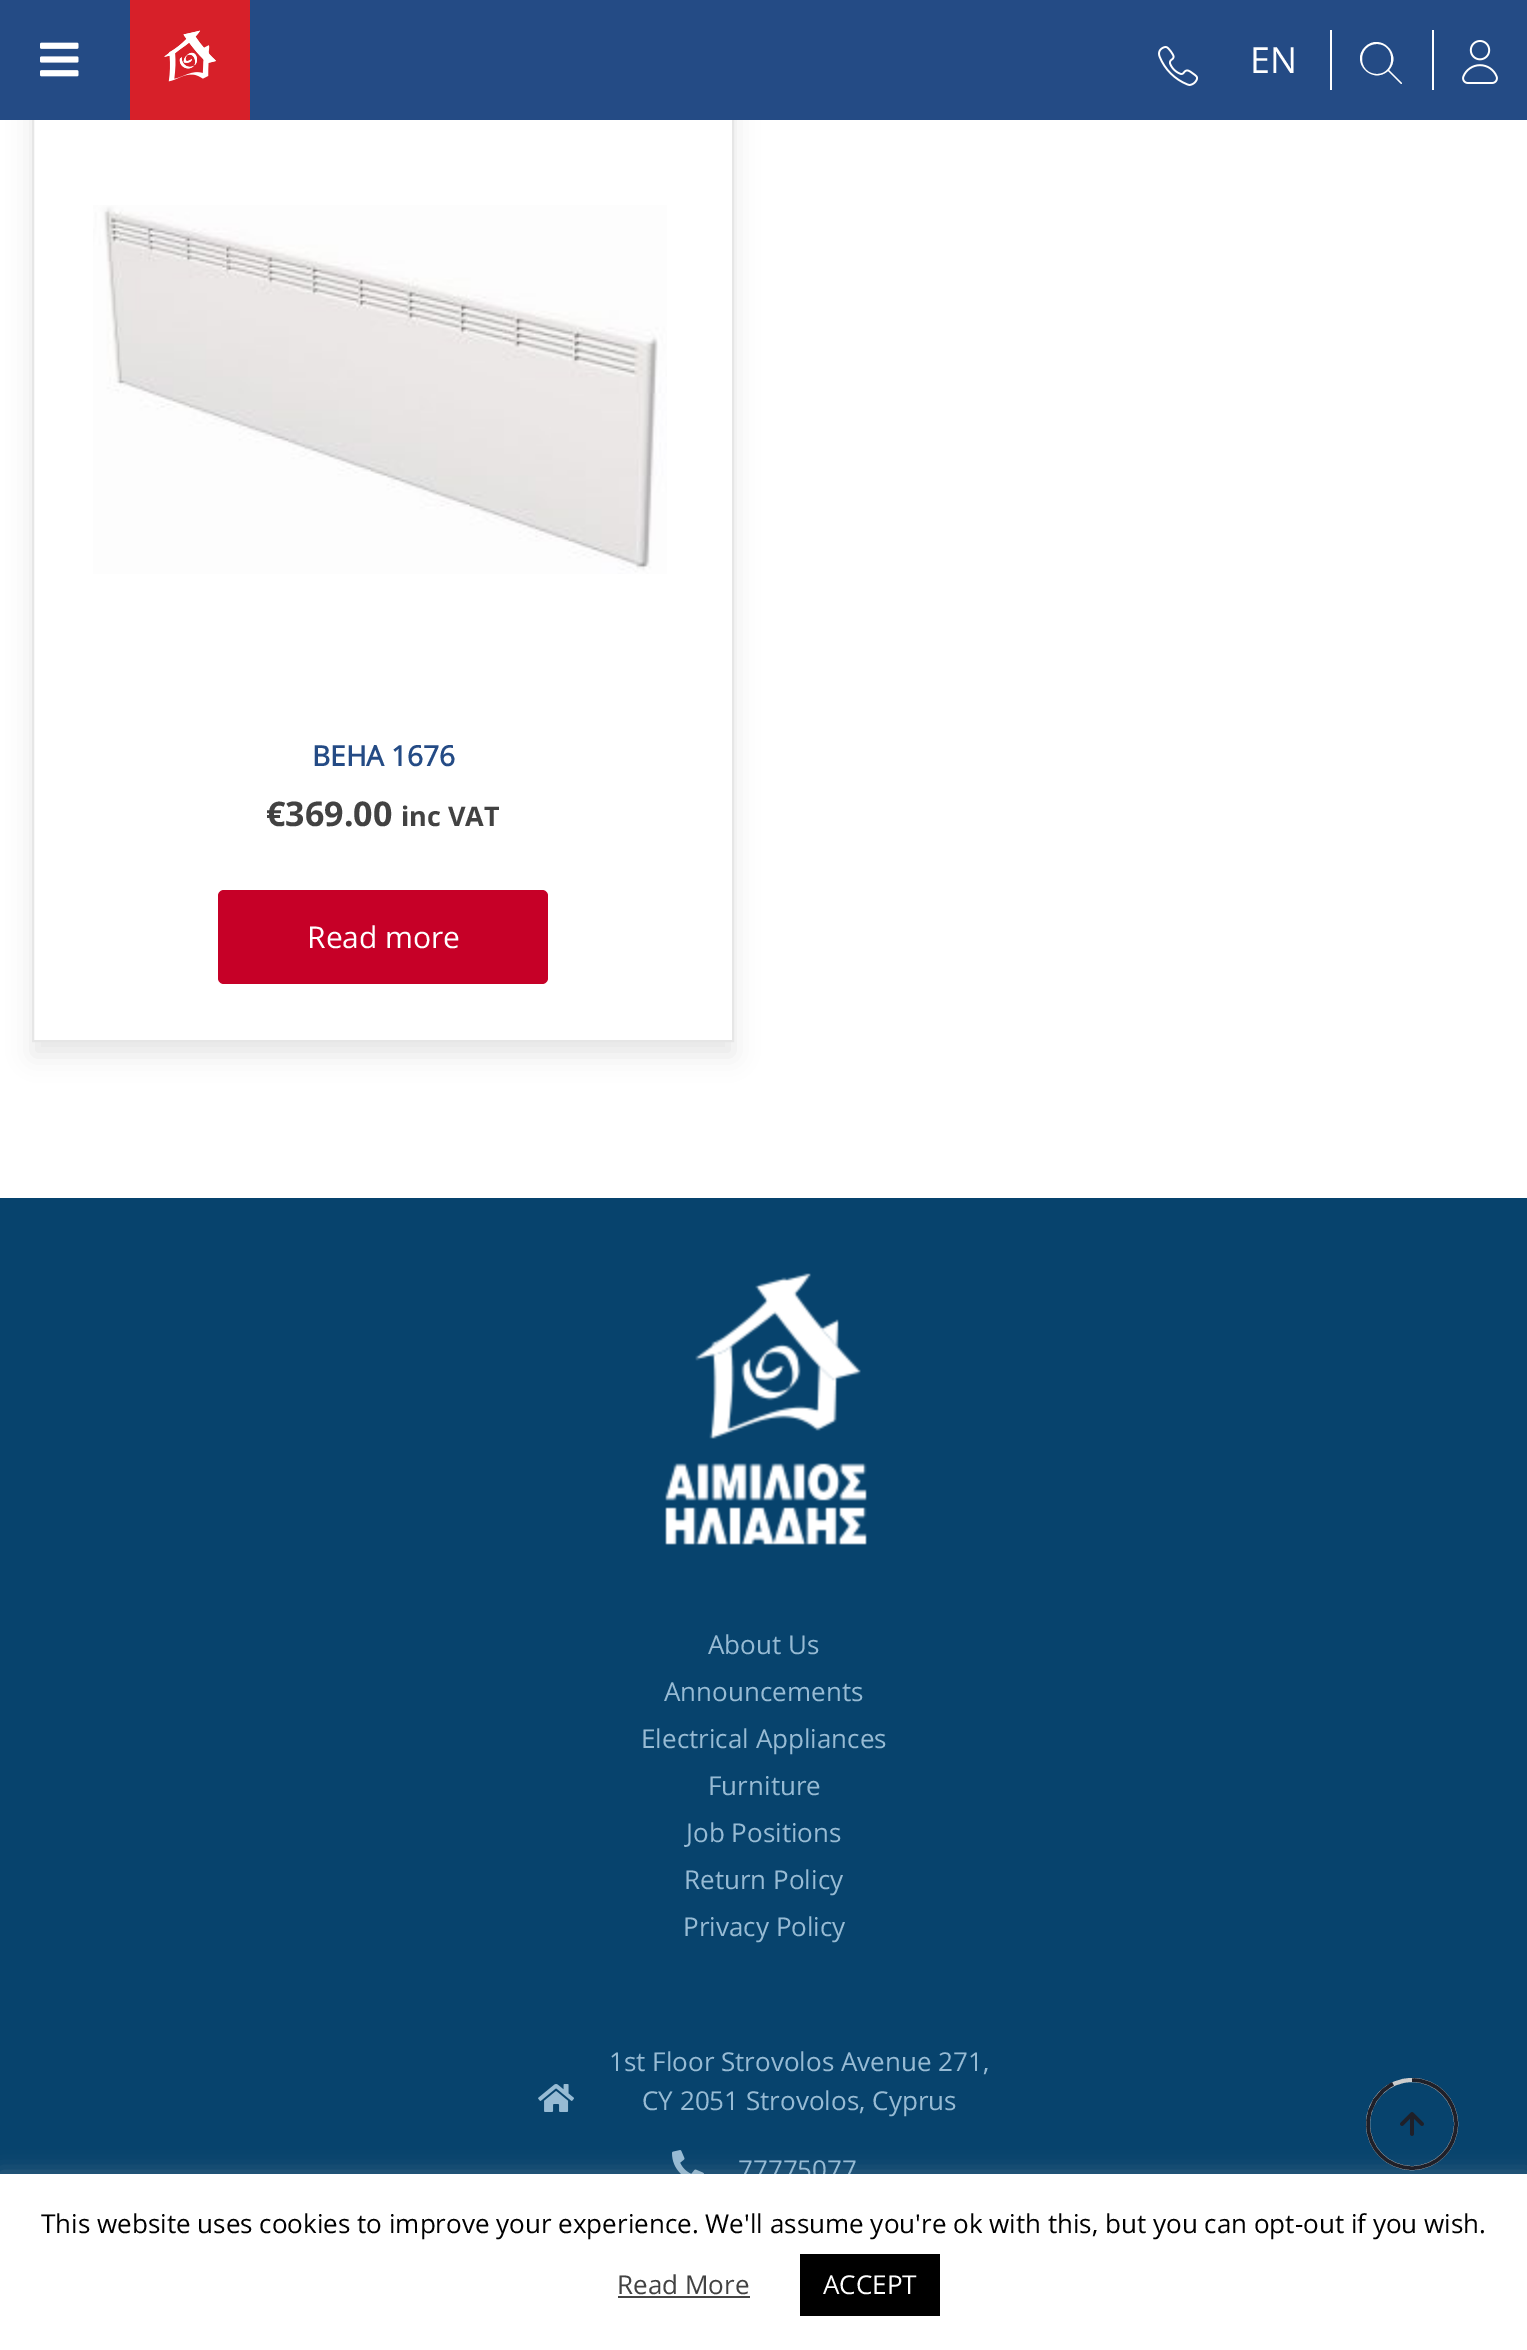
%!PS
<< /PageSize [1527 2350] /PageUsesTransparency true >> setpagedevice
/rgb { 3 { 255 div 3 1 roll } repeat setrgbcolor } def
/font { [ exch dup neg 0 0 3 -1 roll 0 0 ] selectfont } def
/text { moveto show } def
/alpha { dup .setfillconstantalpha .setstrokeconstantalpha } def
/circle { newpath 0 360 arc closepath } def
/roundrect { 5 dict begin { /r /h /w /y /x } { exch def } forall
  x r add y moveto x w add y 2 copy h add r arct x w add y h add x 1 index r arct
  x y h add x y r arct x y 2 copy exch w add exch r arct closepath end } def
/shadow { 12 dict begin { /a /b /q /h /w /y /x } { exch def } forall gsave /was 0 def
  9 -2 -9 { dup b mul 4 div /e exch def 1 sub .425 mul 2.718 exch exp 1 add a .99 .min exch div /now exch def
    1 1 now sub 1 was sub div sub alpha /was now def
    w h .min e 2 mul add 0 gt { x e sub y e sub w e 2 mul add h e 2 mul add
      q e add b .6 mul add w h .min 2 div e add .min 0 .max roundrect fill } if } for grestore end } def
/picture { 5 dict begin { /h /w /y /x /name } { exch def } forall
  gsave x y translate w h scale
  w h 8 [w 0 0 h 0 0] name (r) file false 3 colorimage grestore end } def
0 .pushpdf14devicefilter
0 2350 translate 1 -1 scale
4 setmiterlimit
255 255 255 rgb
0 0 1527 2350 rectfill
gsave
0 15 moveto 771 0 rlineto 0 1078 rlineto -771 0 rlineto closepath 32 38 moveto 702 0 rlineto 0 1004 rlineto -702 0 rlineto closepath eoclip newpath
0 0 0 rgb
32 52 702 1004 0 12 0.09 shadow
grestore
230 230 230 rgb
2 setlinewidth
33 39 700 1002 rectstroke
36 75 133 rgb
0 0 1527 120 rectfill
(img_01.rgb) 40 42 39 35 picture
(img_02.rgb) 130 0 120 120 picture
(img_03.rgb) 1158 46 40 40 picture
255 255 255 rgb
1330 30 2 60 rectfill
1402 83 moveto -13 -13 rlineto 14 -16 -9 -38 -24 -23 rcurveto -15 15 7 38 23 24 rcurveto 13 13 rlineto 1 0 1 -1 1 -1 rcurveto closepath 1377 74 moveto -20 0 -20 -30 0 -30 rcurveto 19 0 19 30 0 30 rcurveto closepath fill
1432 30 2 60 rectfill
(img_04.rgb) 1462 40 36 44 picture
(img_05.rgb) 93 205 574 369 picture
198 0 39 rgb
218 890 330 94 6 roundrect fill
7 67 109 rgb
0 1198 1527 976 rectfill
(img_06.rgb) 665 1273 202 272 picture
(img_07.rgb) 538 2084 36 28 picture
(img_08.rgb) 672 2150 32 24 picture
172 171 171 rgb
0 2172 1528 176 0 10 0.3 shadow
204 204 204 rgb
4 setlinewidth
1412 2124 44 circle stroke
31 32 41 rgb
3.6 setlinewidth
1412 2080 moveto 24.5 0 44 19.5 44 44 rcurveto 0 24.5 -19.5 44 -44 44 rcurveto -24.5 0 -44 -19.5 -44 -44 rcurveto 0 -17.5 10 -32.5 25 -40 rcurveto stroke
(img_09.rgb) 1400 2112 24 24 picture
/OpenSans-Regular 36 font
255 255 255 rgb
(EN) 1250 73 text
/OpenSans-Bold 28 font
36 75 133 rgb
(BEHA 1676) 312 766 text
/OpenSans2-Bold 34 font
66 66 66 rgb
(€369.00) 266 826 text
/OpenSans2-Bold 27 font
(inc VAT) 401 826 text
/OpenSans-Regular 30 font
255 255 255 rgb
(Read more) 307 948 text
/OpenSans-Regular 26 font
151 187 212 rgb
(About Us) 708 1654 text
(Announcements) 664 1701 text
(Electrical Appliances) 641 1748 text
(Furniture) 708 1795 text
(Job Positions) 686 1842 text
(Return Policy) 684 1889 text
(Privacy Policy) 683 1936 text
(1st Floor Strovolos Avenue 271,) 609 2071 text
(CY 2051 Strovolos, Cyprus) 642 2110 text
(77775077) 738 2179 text
255 255 255 rgb
0 2174 1527 176 rectfill
0 0 0 rgb
(This website uses cookies to improve your experience. We'll assume you're ok with this, but you can opt-out if you wish.) 41 2233 text
66 66 66 rgb
(Read More) 617 2294 text
68 68 68 rgb
618 2296 132 2 rectfill
0 0 0 rgb
800 2254 140 62 rectfill
255 255 255 rgb
(ACCEPT) 823 2294 text
.poppdf14devicefilter showpage
